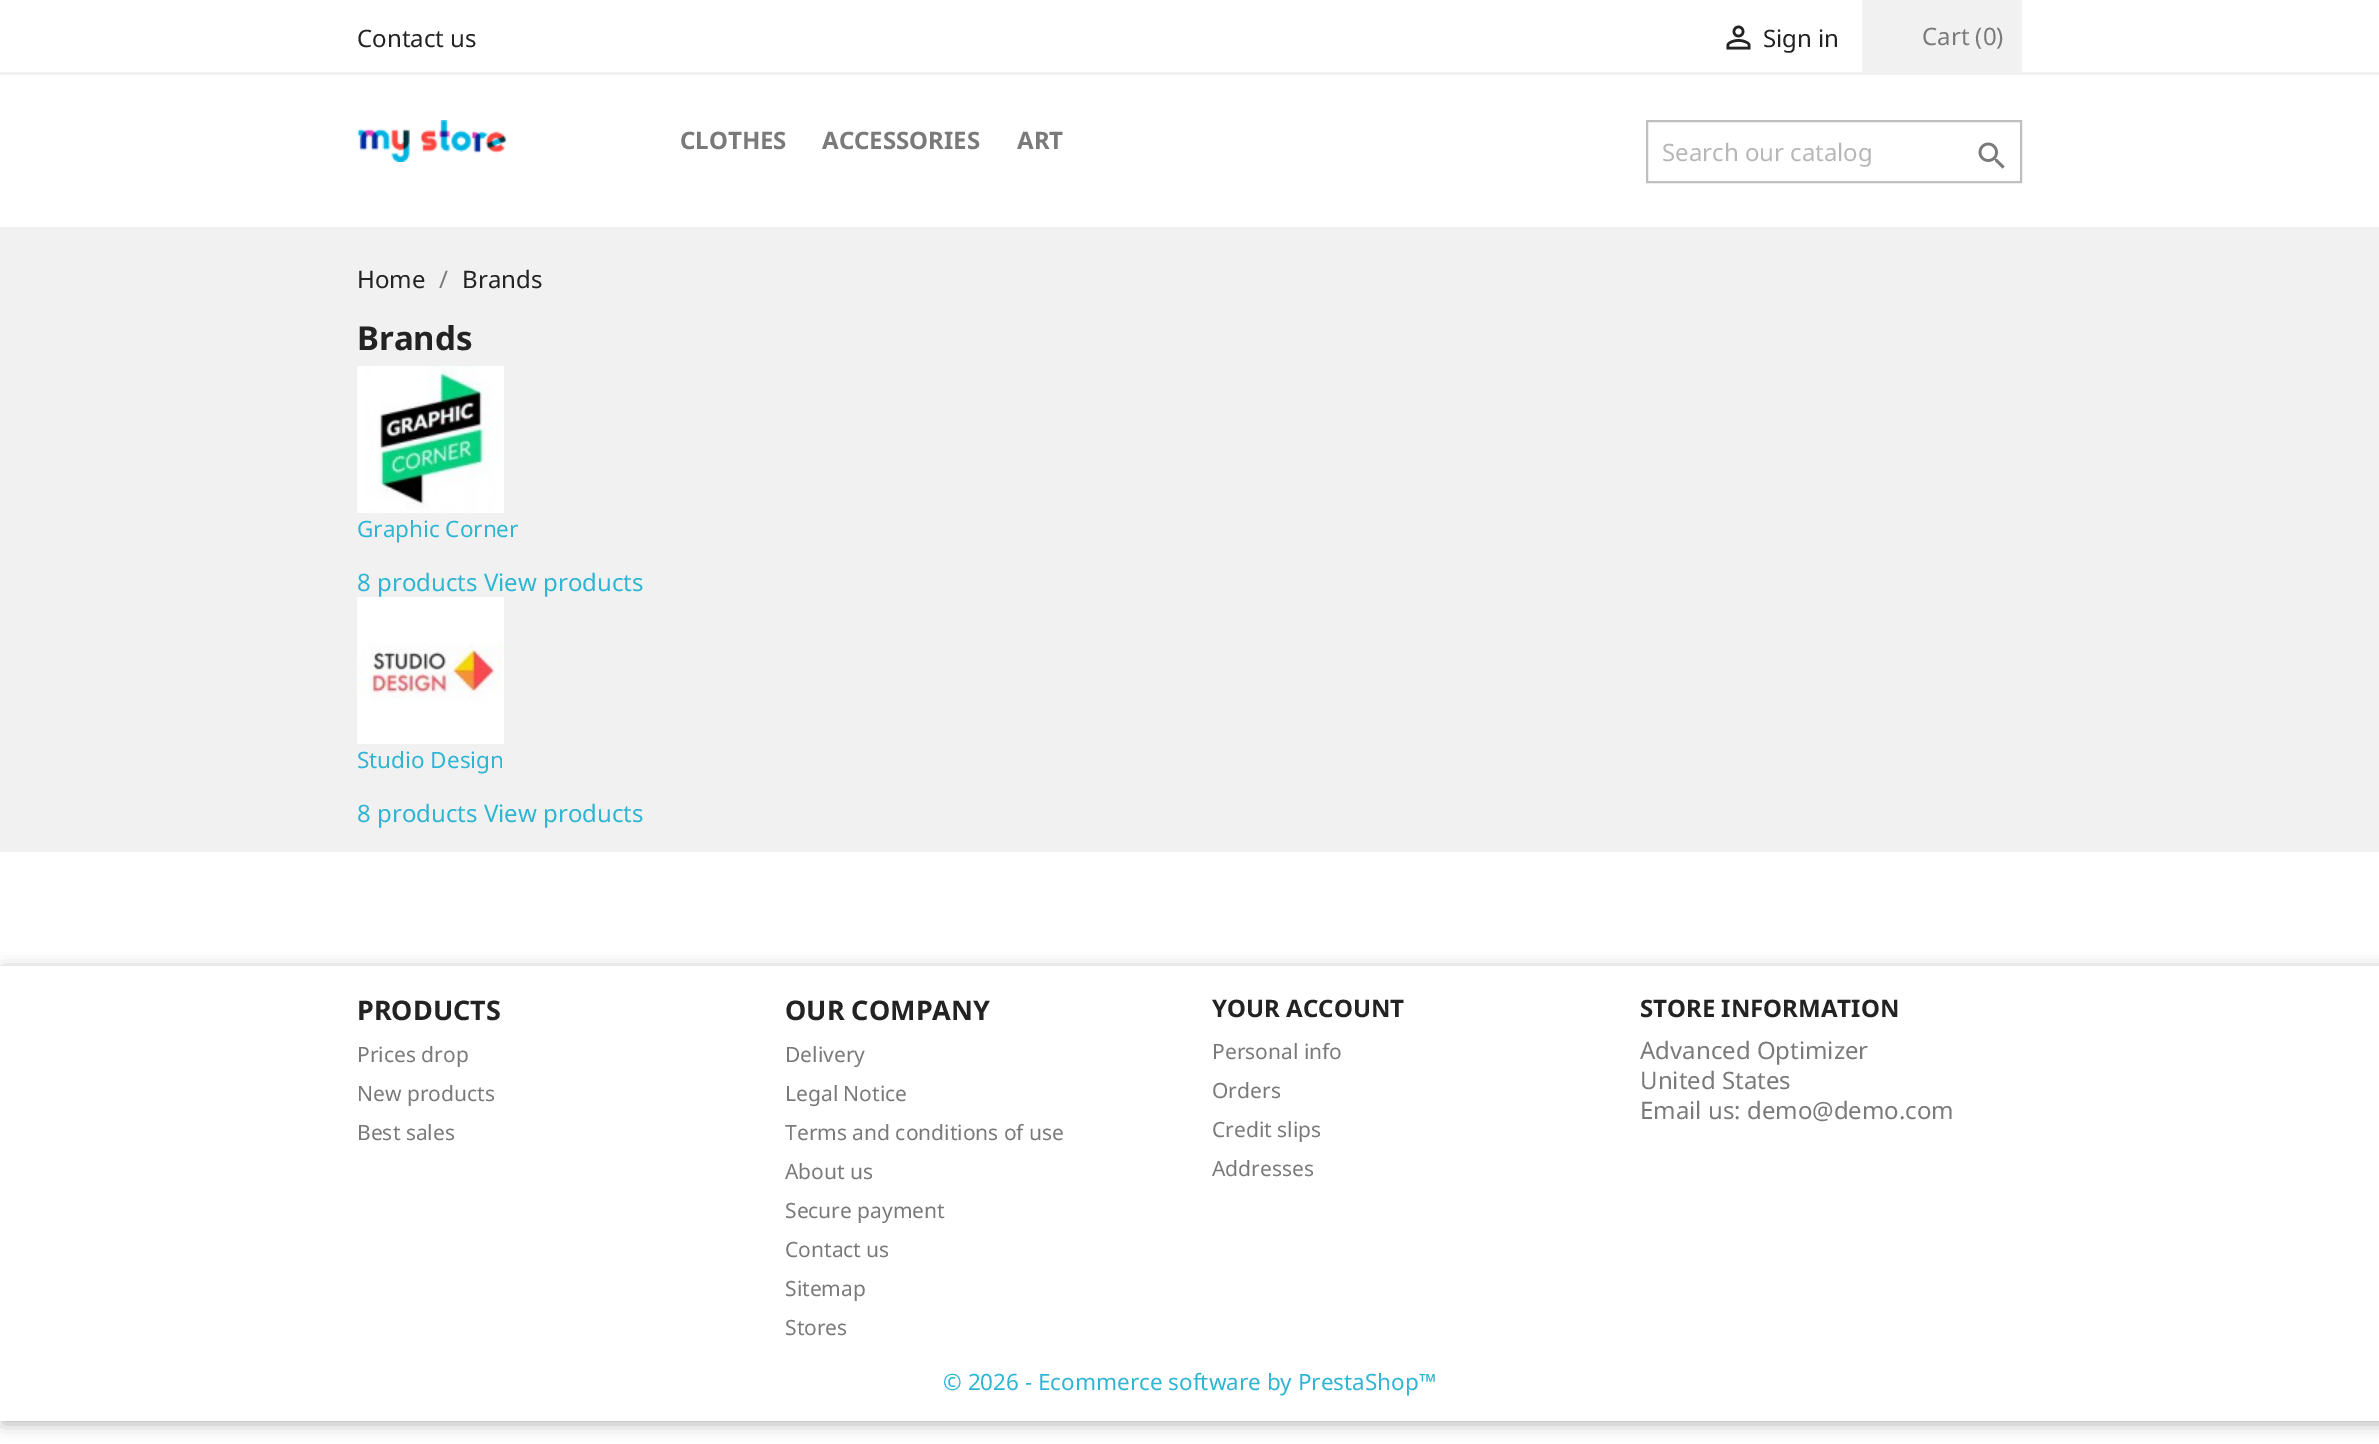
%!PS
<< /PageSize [2379 1444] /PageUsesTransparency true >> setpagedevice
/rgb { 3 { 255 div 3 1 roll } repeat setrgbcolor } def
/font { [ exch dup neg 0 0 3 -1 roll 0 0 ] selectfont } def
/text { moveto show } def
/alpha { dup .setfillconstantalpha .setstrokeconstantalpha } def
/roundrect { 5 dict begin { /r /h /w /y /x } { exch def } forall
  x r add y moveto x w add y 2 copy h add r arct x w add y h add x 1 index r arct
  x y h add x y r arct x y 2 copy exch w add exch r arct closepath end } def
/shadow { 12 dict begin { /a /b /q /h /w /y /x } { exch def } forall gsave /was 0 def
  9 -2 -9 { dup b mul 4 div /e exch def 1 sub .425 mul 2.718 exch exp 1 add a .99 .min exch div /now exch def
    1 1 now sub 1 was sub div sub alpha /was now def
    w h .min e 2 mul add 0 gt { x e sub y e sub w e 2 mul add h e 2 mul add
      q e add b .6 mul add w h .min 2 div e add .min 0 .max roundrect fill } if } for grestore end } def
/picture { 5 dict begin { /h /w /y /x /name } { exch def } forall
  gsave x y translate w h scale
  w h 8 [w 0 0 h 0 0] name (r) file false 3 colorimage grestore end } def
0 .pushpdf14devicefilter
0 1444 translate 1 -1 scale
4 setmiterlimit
255 255 255 rgb
0 0 2379 1444 rectfill
241 241 241 rgb
0 72 2379 3 rectfill
(img_01.rgb) 1726 25 25 25 picture
1862 0 160 72 rectfill
(img_02.rgb) 357 120 150 42 picture
191 191 191 rgb
2 setlinewidth
1647 121 374 61 rectstroke
(img_03.rgb) 1978 142 27 27 picture
241 241 241 rgb
0 227 2379 625 rectfill
(img_04.rgb) 357 366 147 147 picture
(img_05.rgb) 357 597 147 147 picture
gsave
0 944 moveto 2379 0 rlineto 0 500 rlineto -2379 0 rlineto closepath 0 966 moveto 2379 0 rlineto 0 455 rlineto -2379 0 rlineto closepath eoclip newpath
0 0 0 rgb
3 969 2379 455 0 8 0.3 shadow
grestore
/NotoSans-Regular 24 font
35 35 35 rgb
(Contact us) 357 47 text
(Sign in) 1763 47 text
122 122 122 rgb
(Cart \(0\)) 1922 45 text
/NotoSans-Bold 24 font
(CLOTHES) 680 149 text
(ACCESSORIES) 822 149 text
(ART) 1017 149 text
/NotoSans-Regular 24 font
183 183 183 rgb
(Search our catalog) 1662 161 text
35 35 35 rgb
(Home) 357 288 text
122 122 122 rgb
(/) 439 288 text
35 35 35 rgb
(Brands) 462 288 text
/NotoSans-Bold 33 font
(Brands) 357 350 text
/NotoSans-Regular 22.5 font
47 181 210 rgb
(Graphic Corner) 357 537 text
/NotoSans-Regular 24 font
(8 products View products) 357 591 text
/NotoSans-Regular 22.5 font
(Studio Design) 357 768 text
/NotoSans-Regular 24 font
(8 products View products) 357 822 text
/NotoSans-Bold 27 font
35 35 35 rgb
(PRODUCTS) 357 1020 text
/NotoSans-Regular 21 font
122 122 122 rgb
(Prices drop) 357 1062 text
(New products) 357 1101 text
(Best sales) 357 1140 text
/NotoSans-Bold 27 font
35 35 35 rgb
(OUR COMPANY) 785 1020 text
/NotoSans-Regular 21 font
122 122 122 rgb
(Delivery) 785 1062 text
(Legal Notice) 785 1101 text
(Terms and conditions of use) 785 1140 text
(About us) 785 1179 text
(Secure payment) 785 1218 text
(Contact us) 785 1257 text
(Sitemap) 785 1296 text
(Stores) 785 1335 text
/NotoSans-Bold 24 font
35 35 35 rgb
(YOUR ACCOUNT) 1212 1017 text
/NotoSans-Regular 21 font
122 122 122 rgb
(Personal info) 1212 1059 text
(Orders) 1212 1098 text
(Credit slips) 1212 1137 text
(Addresses) 1212 1176 text
/NotoSans-Bold 24 font
35 35 35 rgb
(STORE INFORMATION) 1640 1017 text
/NotoSans-Regular 24 font
122 122 122 rgb
(Advanced Optimizer) 1640 1059 text
(United States) 1640 1089 text
(Email us: demo@demo.com) 1640 1119 text
/NotoSans-Regular 22.5 font
47 181 210 rgb
(© 2026 - Ecommerce software by PrestaShop™) 943 1390 text
.poppdf14devicefilter showpage
